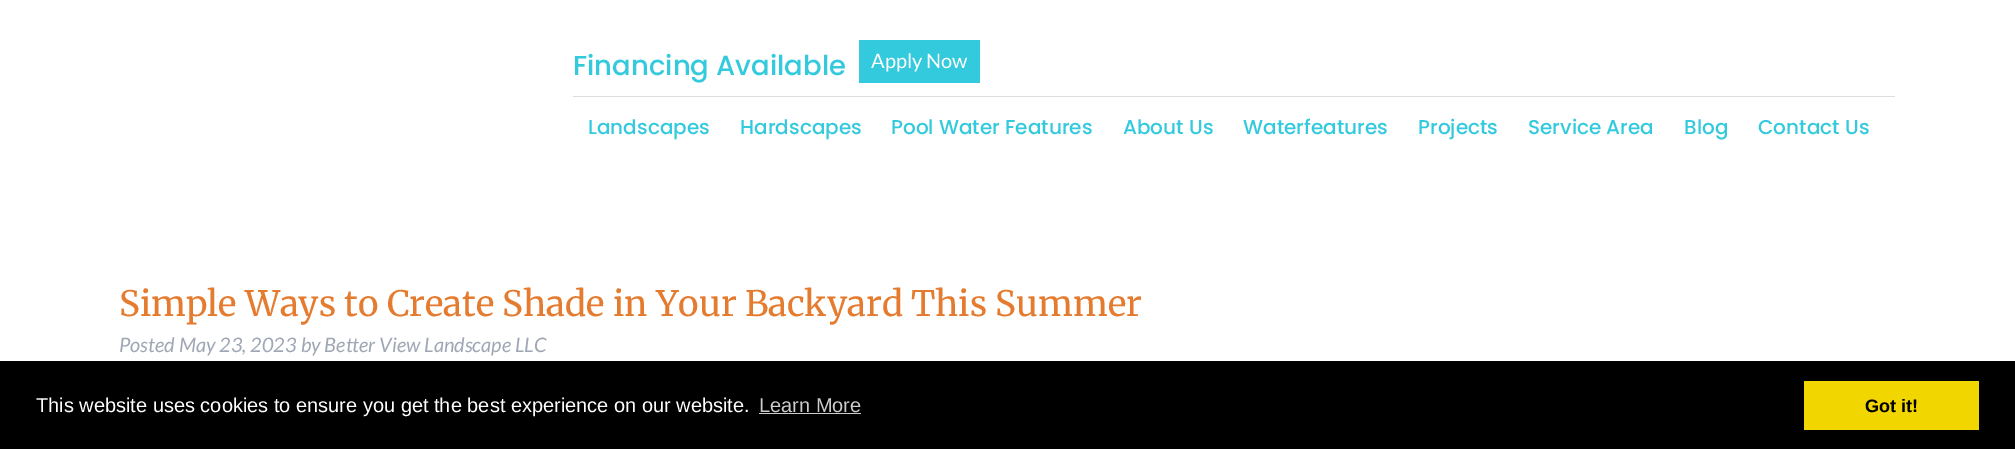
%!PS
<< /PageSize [2015 449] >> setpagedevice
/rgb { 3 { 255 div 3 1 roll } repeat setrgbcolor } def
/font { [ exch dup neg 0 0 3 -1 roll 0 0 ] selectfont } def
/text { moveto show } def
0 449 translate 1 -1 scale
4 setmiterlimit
255 255 255 rgb
0 0 2015 449 rectfill
221 221 221 rgb
573 96 1322 1 rectfill
51 202 222 rgb
859 40 121 43 rectfill
0 0 0 rgb
0 361 2015 88 rectfill
204 204 204 rgb
759 413 102 1 rectfill
241 214 0 rgb
1804 381 175 49 rectfill
/Poppins-Medium 27.5 font
51 202 222 rgb
(Financing Available) 573 75 text
/Lato-Regular 20 font
255 255 255 rgb
(Apply Now) 871 68 text
/Poppins-Medium 20 font
51 202 222 rgb
(Landscapes) 588 134 text
(Hardscapes) 740 134 text
(Pool Water Features) 891 134 text
(About Us) 1123 134 text
(Waterfeatures) 1243 134 text
(Projects) 1418 134 text
(Service Area) 1528 134 text
(Blog) 1684 134 text
(Contact Us) 1758 134 text
/Merriweather-Regular 35 font
228 123 47 rgb
(Simple Ways to Create Shade in Your Backyard This Summer) 119 316 text
/Lato-Italic 20 font
159 166 180 rgb
(Posted May 23, 2023 by Better View Landscape LLC) 119 352 text
/LiberationSans-Regular 20 font
255 255 255 rgb
(This website uses cookies to ensure you get the best experience on our website.) 36 412 text
204 204 204 rgb
(Learn More) 759 412 text
/LiberationSans-Bold 18 font
0 0 0 rgb
(Got it!) 1865 412 text
showpage
